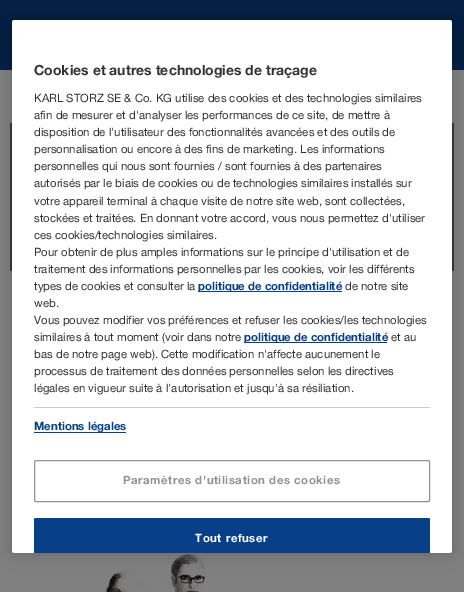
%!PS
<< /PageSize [464 592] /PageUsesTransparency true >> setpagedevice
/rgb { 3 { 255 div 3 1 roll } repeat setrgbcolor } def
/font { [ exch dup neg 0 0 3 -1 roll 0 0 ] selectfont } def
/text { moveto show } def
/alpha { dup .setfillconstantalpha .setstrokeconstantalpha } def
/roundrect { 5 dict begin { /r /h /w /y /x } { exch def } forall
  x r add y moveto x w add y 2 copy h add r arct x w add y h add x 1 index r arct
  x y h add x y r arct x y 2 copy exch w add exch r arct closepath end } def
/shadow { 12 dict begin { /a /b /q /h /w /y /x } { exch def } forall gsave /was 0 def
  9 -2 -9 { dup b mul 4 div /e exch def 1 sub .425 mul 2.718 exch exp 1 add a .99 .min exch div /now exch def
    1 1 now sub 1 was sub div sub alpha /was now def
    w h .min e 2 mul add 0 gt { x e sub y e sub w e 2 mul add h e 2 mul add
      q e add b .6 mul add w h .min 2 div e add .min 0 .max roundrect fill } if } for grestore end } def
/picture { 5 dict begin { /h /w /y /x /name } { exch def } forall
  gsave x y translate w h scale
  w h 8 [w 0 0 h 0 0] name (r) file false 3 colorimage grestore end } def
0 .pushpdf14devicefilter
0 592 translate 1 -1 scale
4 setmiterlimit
128 128 128 rgb
0 0 464 592 rectfill
4 32 69 rgb
0 0 464 70 rectfill
(img_01.rgb) 10 123 444 148 picture
(img_02.rgb) 103 553 104 39 picture
0 0 0 rgb
12 20 440 533 2.5 9 0.2 shadow
255 255 255 rgb
12 20 440 533 2.5 roundrect fill
7 64 137 rgb
198 291 144 1 rectfill
244 342 143 1 rectfill
204 204 204 rgb
34 407 396 1 rectfill
7 64 137 rgb
34 432 92 1 rectfill
147 147 147 rgb
34.5 460.5 395 41 1.5 roundrect stroke
7 64 137 rgb
36 518 moveto 392 0 rlineto 1 0 2 1 2 2 rcurveto 0 33 rlineto -396 0 rlineto 0 -33 rlineto 0 -1 1 -2 2 -2 rcurveto closepath fill
36 518 moveto -1 0 -2 1 -2 2 rcurveto 0 33 rlineto 1 0 rlineto 0 -33 rlineto 0 -1 0 -1 1 -1 rcurveto 392 0 rlineto 1 0 1 0 1 1 rcurveto 0 33 rlineto 1 0 rlineto 0 -33 rlineto 0 -1 -1 -2 -2 -2 rcurveto closepath fill
/Helvetica-Bold 14 font
51 51 51 rgb
(Cookies et autres technologies de traçage) 34 75 text
/Helvetica-Regular 11.4 font
(KARL STORZ SE & Co. KG utilise des cookies et des technologies similaires) 34 102 text
(afin de mesurer et d'analyser les performances de ce site, de mettre à) 34 119 text
(disposition de l'utilisateur des fonctionnalités avancées et des outils de) 34 136 text
(personnalisation ou encore à des fins de marketing. Les informations) 34 153 text
(personnelles qui nous sont fournies / sont fournies à des partenaires) 34 170 text
(autorisés par le biais de cookies ou de technologies similaires installés sur) 34 187 text
(votre appareil terminal à chaque visite de notre site web, sont collectées,) 34 205 text
(stockées et traitées. En donnant votre accord, vous nous permettez d'utiliser) 34 222 text
(ces cookies/technologies similaires.) 34 239 text
(Pour obtenir de plus amples informations sur le principe d'utilisation et de) 34 256 text
(traitement des informations personnelles par les cookies, voir les différents) 34 273 text
(types de cookies et consulter la) 34 290 text
/Helvetica-Bold 11.4 font
7 64 137 rgb
(politique de confidentialité) 198 290 text
/Helvetica-Regular 11.4 font
51 51 51 rgb
(de notre site) 345 290 text
(web.) 34 307 text
(Vous pouvez modifier vos préférences et refuser les cookies/les technologies) 34 324 text
(similaires à tout moment \(voir dans notre) 34 341 text
/Helvetica-Bold 11.4 font
7 64 137 rgb
(politique de confidentialité) 244 341 text
/Helvetica-Regular 11.4 font
51 51 51 rgb
(et au) 391 341 text
(bas de notre page web\). Cette modification n'affecte aucunement le) 34 358 text
(processus de traitement des données personnelles selon les directives) 34 375 text
(légales en vigueur suite à l'autorisation et jusqu'à sa résiliation.) 34 392 text
/Helvetica-Bold 11.4 font
7 64 137 rgb
(Mentions légales) 34 430 text
147 147 147 rgb
123 484 moveto 0.55 0 (Paramètres d'utilisation des cookies) ashow
255 255 255 rgb
195 542 moveto 0.55 0 (Tout refuser) ashow
.poppdf14devicefilter showpage
